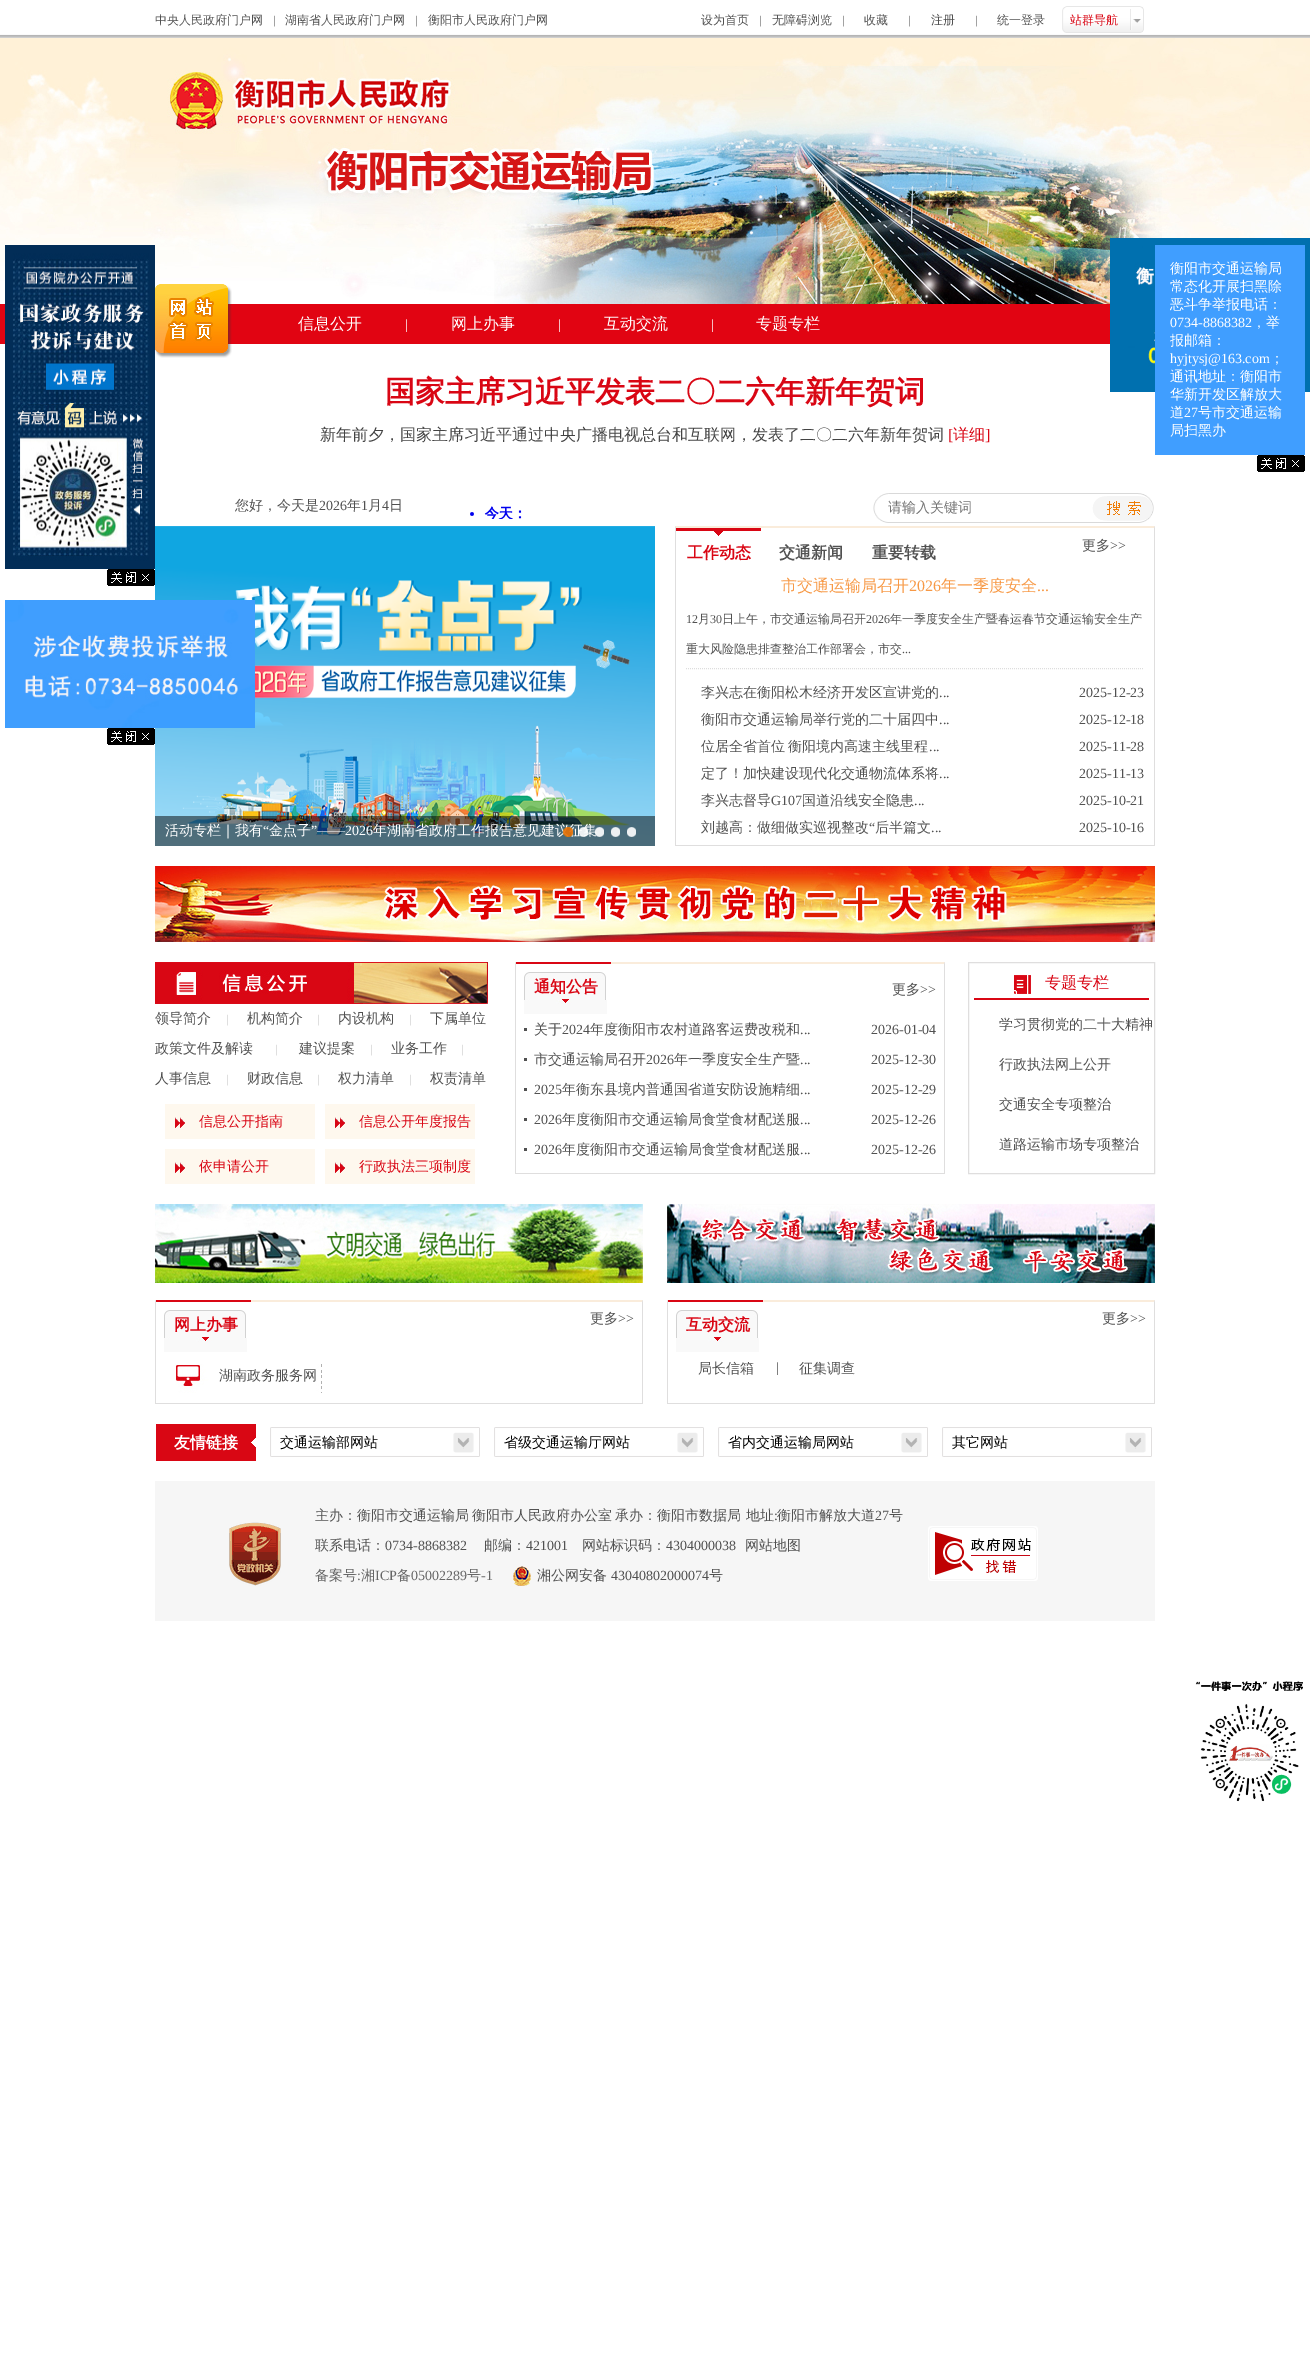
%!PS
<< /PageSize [1310 2378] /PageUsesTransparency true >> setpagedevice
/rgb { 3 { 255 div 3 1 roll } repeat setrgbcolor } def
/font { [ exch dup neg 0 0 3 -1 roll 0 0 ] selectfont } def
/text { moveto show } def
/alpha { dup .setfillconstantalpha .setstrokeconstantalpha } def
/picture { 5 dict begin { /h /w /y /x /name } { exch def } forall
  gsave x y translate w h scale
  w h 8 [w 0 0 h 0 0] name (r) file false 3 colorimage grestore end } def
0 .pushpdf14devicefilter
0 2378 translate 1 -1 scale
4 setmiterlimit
255 255 255 rgb
0 0 1310 2378 rectfill
(img_01.rgb) 0 34 1310 4 picture
(img_02.rgb) 1062 6 82 27 picture
(img_03.rgb) 0 38 1310 266 picture
225 4 18 rgb
0 304 1110 40 rectfill
(img_04.rgb) 5 245 150 324 picture
(img_05.rgb) 107 569 48 17 picture
(img_06.rgb) 1110 238 200 154 picture
(img_07.rgb) 155 284 77 74 picture
64 158 255 rgb
1155 245 150 210 rectfill
(img_05.rgb) 1257 455 48 17 picture
(img_08.rgb) 470 506 52 13 picture
(img_09.rgb) 873 493 281 30 picture
255 255 255 rgb
888 494 77 26 rectfill
(img_10.rgb) 1107 496 46 25 picture
(img_12.rgb) 155 526 500 320 picture
(img_11.rgb) 5 600 250 128 picture
(img_05.rgb) 107 728 48 17 picture
0.5 alpha
0 0 0 rgb
155 816 500 30 rectfill
1 alpha
(img_16.rgb) 611 827 9 10 picture
(img_17.rgb) 627 827 9 10 picture
250 236 219 rgb
675 526 moveto 480 0 rlineto -1 2 rlineto -478 0 rlineto closepath fill
223 222 222 rgb
1155 526 moveto 0 320 rlineto -1 -1 rlineto 0 -317 rlineto closepath fill
675 845 480 1 rectfill
675 846 moveto 0 -320 rlineto 1 2 rlineto 0 317 rlineto closepath fill
(img_18.rgb) 676 528 85 8 picture
221 221 221 rgb
[1 1] 0 setdash
686 668.5 moveto 458 0 rlineto stroke
(img_19.rgb) 155 866 1000 76 picture
(img_20.rgb) 155 962 333 42 picture
254 248 238 rgb
165 1104 150 35 rectfill
(img_21.rgb) 175 1117 5 11 picture
(img_21.rgb) 180 1117 5 11 picture
325 1104 150 35 rectfill
(img_21.rgb) 335 1117 5 11 picture
(img_21.rgb) 340 1117 5 11 picture
165 1149 150 35 rectfill
(img_21.rgb) 175 1162 5 11 picture
(img_21.rgb) 180 1162 5 11 picture
325 1149 150 35 rectfill
(img_21.rgb) 335 1162 5 11 picture
(img_21.rgb) 340 1162 5 11 picture
250 236 219 rgb
515 962 moveto 430 0 rlineto -1 2 rlineto -428 0 rlineto closepath fill
223 222 222 rgb
945 962 moveto 0 212 rlineto -1 -1 rlineto 0 -209 rlineto closepath fill
515 1173 430 1 rectfill
515 1174 moveto 0 -212 rlineto 1 2 rlineto 0 209 rlineto closepath fill
217 6 20 rgb
516 962 95 2 rectfill
(img_22.rgb) 524 972 83 42 picture
81 81 81 rgb
524 1028 3 3 rectfill
524 1058 3 3 rectfill
524 1088 3 3 rectfill
524 1118 3 3 rectfill
524 1148 3 3 rectfill
223 222 222 rgb
[] 0 setdash
968.5 962.5 186 211 rectstroke
217 6 20 rgb
974 998 175 2 rectfill
(img_23.rgb) 1014 975 17 19 picture
(img_24.rgb) 155 1204 488 79 picture
(img_25.rgb) 667 1204 488 79 picture
250 236 219 rgb
155 1300 moveto 488 0 rlineto -1 2 rlineto -486 0 rlineto closepath fill
223 222 222 rgb
643 1300 moveto 0 104 rlineto -1 -1 rlineto 0 -101 rlineto closepath fill
155 1403 488 1 rectfill
155 1404 moveto 0 -104 rlineto 1 2 rlineto 0 101 rlineto closepath fill
217 6 20 rgb
156 1300 95 2 rectfill
(img_22.rgb) 164 1310 83 42 picture
(img_26.rgb) 175 1364 147 29 picture
250 236 219 rgb
667 1300 moveto 488 0 rlineto -1 2 rlineto -486 0 rlineto closepath fill
223 222 222 rgb
1155 1300 moveto 0 104 rlineto -1 -1 rlineto 0 -101 rlineto closepath fill
667 1403 488 1 rectfill
667 1404 moveto 0 -104 rlineto 1 2 rlineto 0 101 rlineto closepath fill
217 6 20 rgb
668 1300 95 2 rectfill
(img_22.rgb) 676 1310 83 42 picture
(img_27.rgb) 156 1424 100 37 picture
(img_28.rgb) 270 1427 210 30 picture
(img_28.rgb) 494 1427 210 30 picture
(img_28.rgb) 718 1427 210 30 picture
(img_28.rgb) 942 1427 210 30 picture
246 246 246 rgb
155 1481 1000 140 rectfill
(img_29.rgb) 229 1522 52 64 picture
(img_30.rgb) 513 1566 18 20 picture
(img_31.rgb) 928 1526 110 55 picture
(img_32.rgb) 1195 1681 108 121 picture
/WenQuanYiZenHei-Medium 12 font
81 81 81 rgb
(中央人民政府门户网) 155 24 text
/LiberationSerif-Regular 12 font
(|) 273 24 text
/WenQuanYiZenHei-Medium 12 font
(湖南省人民政府门户网) 285 24 text
/LiberationSerif-Regular 12 font
(|) 415 24 text
/WenQuanYiZenHei-Medium 12 font
(衡阳市人民政府门户网) 428 24 text
(设为首页) 701 24 text
/LiberationSerif-Regular 12 font
(|) 759 24 text
/WenQuanYiZenHei-Medium 12 font
(无障碍浏览) 772 24 text
/LiberationSerif-Regular 12 font
(|) 842 24 text
/WenQuanYiZenHei-Medium 12 font
(收藏) 864 24 text
/LiberationSerif-Regular 12 font
(|) 908 24 text
/WenQuanYiZenHei-Medium 12 font
(注册) 931 24 text
/LiberationSerif-Regular 12 font
(|) 975 24 text
/WenQuanYiZenHei-Medium 12 font
(统一登录) 997 24 text
217 6 20 rgb
(站群导航) 1070 24 text
/WenQuanYiZenHei-Medium 16 font
255 255 255 rgb
(信息公开) 298 329 text
/LiberationSerif-Regular 14 font
(|) 405 329 text
/WenQuanYiZenHei-Medium 16 font
(网上办事) 451 329 text
/LiberationSerif-Regular 14 font
(|) 558 329 text
/WenQuanYiZenHei-Medium 16 font
(互动交流) 604 329 text
/LiberationSerif-Regular 14 font
(|) 711 329 text
/WenQuanYiZenHei-Medium 16 font
(专题专栏) 756 329 text
/WenQuanYiZenHei-Medium 14 font
(衡阳市交通运输局) 1170 273 text
(常态化开展扫黑除) 1170 291 text
(恶斗争举报电话：) 1170 309 text
/LiberationSerif-Regular 14 font
(0734-8868382) 1170 327 text
/WenQuanYiZenHei-Medium 14 font
(，举) 1252 327 text
(报邮箱：) 1170 345 text
/LiberationSerif-Regular 14 font
(hyjtysj@163.com) 1170 363 text
/WenQuanYiZenHei-Medium 14 font
(；) 1270 363 text
(通讯地址：衡阳市) 1170 381 text
(华新开发区解放大) 1170 399 text
(道) 1170 417 text
/LiberationSerif-Regular 14 font
(27) 1184 417 text
/WenQuanYiZenHei-Medium 14 font
(号市交通运输) 1198 417 text
(局扫黑办) 1170 435 text
/WenQuanYiZenHei-Bold 30 font
217 6 20 rgb
(国家主席习近平发表二〇二六年新年贺词) 385 402 text
/WenQuanYiZenHei-Medium 16 font
67 67 67 rgb
(新年前夕，国家主席习近平通过中央广播电视总台和互联网，发表了二〇二六年新年贺词) 320 440 text
/LiberationSerif-Regular 16 font
217 6 20 rgb
([) 948 440 text
/WenQuanYiZenHei-Medium 16 font
(详细) 953 440 text
/LiberationSerif-Regular 16 font
(]) 985 440 text
/WenQuanYiZenHei-Medium 14 font
81 81 81 rgb
(您好，今天是) 235 510 text
/LiberationSerif-Regular 14 font
(2026) 319 510 text
/WenQuanYiZenHei-Medium 14 font
(年) 347 510 text
/LiberationSerif-Regular 14 font
(1) 361 510 text
/WenQuanYiZenHei-Medium 14 font
(月) 368 510 text
/LiberationSerif-Regular 14 font
(4) 382 510 text
/WenQuanYiZenHei-Medium 14 font
(日) 389 510 text
117 117 117 rgb
(请输入关键词) 888 512 text
255 255 255 rgb
(活动专栏｜我有) 165 835 text
/LiberationSerif-Regular 14 font
(“) 263 835 text
/WenQuanYiZenHei-Medium 14 font
(金点子) 269 835 text
/LiberationSerif-Regular 14 font
(”——2026) 311 835 text
/WenQuanYiZenHei-Medium 14 font
(年湖南省政府工作报告意见建议征集) 373 835 text
(img_13.rgb) 563 827 10 10 picture
(img_14.rgb) 579 827 9 10 picture
(img_15.rgb) 595 827 9 10 picture
/WenQuanYiZenHei-Bold 16 font
217 6 20 rgb
(工作动态) 687 558 text
81 81 81 rgb
(交通新闻) 779 558 text
(重要转载) 872 558 text
/WenQuanYiZenHei-Medium 14 font
(更多) 1082 550 text
/LiberationSerif-Regular 14 font
(>>) 1110 550 text
/WenQuanYiZenHei-Medium 16 font
247 153 70 rgb
(市交通运输局召开) 781 591 text
/LiberationSerif-Regular 16 font
(2026) 909 591 text
/WenQuanYiZenHei-Medium 16 font
(年一季度安全) 941 591 text
/LiberationSerif-Regular 16 font
(...) 1037 591 text
/LiberationSerif-Regular 12 font
81 81 81 rgb
(12) 686 623 text
/WenQuanYiZenHei-Medium 12 font
(月) 698 623 text
/LiberationSerif-Regular 12 font
(30) 710 623 text
/WenQuanYiZenHei-Medium 12 font
(日上午，市交通运输局召开) 722 623 text
/LiberationSerif-Regular 12 font
(2026) 866 623 text
/WenQuanYiZenHei-Medium 12 font
(年一季度安全生产暨春运春节交通运输安全生产) 890 623 text
(重大风险隐患排查整治工作部署会，市交) 686 653 text
/LiberationSerif-Regular 12 font
(...) 902 653 text
/WenQuanYiZenHei-Medium 14 font
(李兴志在衡阳松木经济开发区宣讲党的) 701 697 text
/LiberationSerif-Regular 14 font
(...) 939 697 text
(2025-12-23) 1079 697 text
/WenQuanYiZenHei-Medium 14 font
(衡阳市交通运输局举行党的二十届四中) 701 724 text
/LiberationSerif-Regular 14 font
(...) 939 724 text
(2025-12-18) 1079 724 text
/WenQuanYiZenHei-Medium 14 font
701 751 moveto -1 0 32 (位居全省首位 衡阳境内高速主线里程) widthshow
/LiberationSerif-Regular 14 font
(...) 929 751 text
(2025-11-28) 1079 751 text
/WenQuanYiZenHei-Medium 14 font
(定了！加快建设现代化交通物流体系将) 701 778 text
/LiberationSerif-Regular 14 font
(...) 939 778 text
(2025-11-13) 1079 778 text
/WenQuanYiZenHei-Medium 14 font
(李兴志督导) 701 805 text
/LiberationSerif-Regular 14 font
(G107) 771 805 text
/WenQuanYiZenHei-Medium 14 font
(国道沿线安全隐患) 802 805 text
/LiberationSerif-Regular 14 font
(...) 914 805 text
(2025-10-21) 1079 805 text
/WenQuanYiZenHei-Medium 14 font
(刘越高：做细做实巡视整改) 701 832 text
/LiberationSerif-Regular 14 font
(“) 869 832 text
/WenQuanYiZenHei-Medium 14 font
(后半篇文) 875 832 text
/LiberationSerif-Regular 14 font
(...) 931 832 text
(2025-10-16) 1079 832 text
/WenQuanYiZenHei-Medium 14 font
(领导简介) 155 1023 text
/LiberationSerif-Regular 12 font
195 195 195 rgb
(|) 226 1023 text
/WenQuanYiZenHei-Medium 14 font
81 81 81 rgb
(机构简介) 247 1023 text
/LiberationSerif-Regular 12 font
195 195 195 rgb
(|) 317 1023 text
/WenQuanYiZenHei-Medium 14 font
81 81 81 rgb
(内设机构) 338 1023 text
/LiberationSerif-Regular 12 font
195 195 195 rgb
(|) 409 1023 text
/WenQuanYiZenHei-Medium 14 font
81 81 81 rgb
(下属单位) 430 1023 text
(政策文件及解读) 155 1053 text
/LiberationSerif-Regular 12 font
195 195 195 rgb
(|) 275 1053 text
/WenQuanYiZenHei-Medium 14 font
81 81 81 rgb
(建议提案) 299 1053 text
/LiberationSerif-Regular 12 font
195 195 195 rgb
(|) 370 1053 text
/WenQuanYiZenHei-Medium 14 font
81 81 81 rgb
(业务工作) 391 1053 text
/LiberationSerif-Regular 12 font
195 195 195 rgb
(|) 461 1053 text
/WenQuanYiZenHei-Medium 14 font
81 81 81 rgb
(人事信息) 155 1083 text
/LiberationSerif-Regular 12 font
195 195 195 rgb
(|) 226 1083 text
/WenQuanYiZenHei-Medium 14 font
81 81 81 rgb
(财政信息) 247 1083 text
/LiberationSerif-Regular 12 font
195 195 195 rgb
(|) 317 1083 text
/WenQuanYiZenHei-Medium 14 font
81 81 81 rgb
(权力清单) 338 1083 text
/LiberationSerif-Regular 12 font
195 195 195 rgb
(|) 409 1083 text
/WenQuanYiZenHei-Medium 14 font
81 81 81 rgb
(权责清单) 430 1083 text
217 6 20 rgb
(信息公开指南) 199 1126 text
(信息公开年度报告) 359 1126 text
(依申请公开) 199 1171 text
(行政执法三项制度) 359 1171 text
/WenQuanYiZenHei-Bold 16 font
(通知公告) 534 992 text
/WenQuanYiZenHei-Medium 14 font
81 81 81 rgb
(更多) 892 994 text
/LiberationSerif-Regular 14 font
(>>) 920 994 text
/WenQuanYiZenHei-Medium 14 font
(关于) 534 1034 text
/LiberationSerif-Regular 14 font
(2024) 562 1034 text
/WenQuanYiZenHei-Medium 14 font
(年度衡阳市农村道路客运费改税和) 590 1034 text
/LiberationSerif-Regular 14 font
(...) 800 1034 text
(2026-01-04) 871 1034 text
/WenQuanYiZenHei-Medium 14 font
(市交通运输局召开) 534 1064 text
/LiberationSerif-Regular 14 font
(2026) 646 1064 text
/WenQuanYiZenHei-Medium 14 font
(年一季度安全生产暨) 674 1064 text
/LiberationSerif-Regular 14 font
(...) 800 1064 text
(2025-12-30) 871 1064 text
(2025) 534 1094 text
/WenQuanYiZenHei-Medium 14 font
(年衡东县境内普通国省道安防设施精细) 562 1094 text
/LiberationSerif-Regular 14 font
(...) 800 1094 text
(2025-12-29) 871 1094 text
(2026) 534 1124 text
/WenQuanYiZenHei-Medium 14 font
(年度衡阳市交通运输局食堂食材配送服) 562 1124 text
/LiberationSerif-Regular 14 font
(...) 800 1124 text
(2025-12-26) 871 1124 text
(2026) 534 1154 text
/WenQuanYiZenHei-Medium 14 font
(年度衡阳市交通运输局食堂食材配送服) 562 1154 text
/LiberationSerif-Regular 14 font
(...) 800 1154 text
(2025-12-26) 871 1154 text
/WenQuanYiZenHei-Medium 16 font
217 6 20 rgb
(专题专栏) 1045 988 text
/WenQuanYiZenHei-Medium 14 font
81 81 81 rgb
(学习贯彻党的二十大精神) 999 1029 text
(行政执法网上公开) 999 1069 text
(交通安全专项整治) 999 1109 text
(道路运输市场专项整治) 999 1149 text
/WenQuanYiZenHei-Bold 16 font
217 6 20 rgb
(网上办事) 174 1330 text
/WenQuanYiZenHei-Medium 14 font
81 81 81 rgb
(更多) 590 1323 text
/LiberationSerif-Regular 14 font
(>>) 618 1323 text
/WenQuanYiZenHei-Medium 14 font
(湖南政务服务网) 219 1380 text
/WenQuanYiZenHei-Bold 16 font
217 6 20 rgb
(互动交流) 686 1330 text
/WenQuanYiZenHei-Medium 14 font
81 81 81 rgb
(更多) 1102 1323 text
/LiberationSerif-Regular 14 font
(>>) 1130 1323 text
/WenQuanYiZenHei-Medium 14 font
(局长信箱) 698 1373 text
/LiberationSerif-Regular 14 font
(|) 776 1372 text
/WenQuanYiZenHei-Medium 14 font
(征集调查) 799 1373 text
/WenQuanYiZenHei-Bold 16 font
255 255 255 rgb
(友情链接) 174 1448 text
/WenQuanYiZenHei-Medium 14 font
0 0 0 rgb
(交通运输部网站) 280 1447 text
(省级交通运输厅网站) 504 1447 text
(省内交通运输局网站) 728 1447 text
(其它网站) 952 1447 text
81 81 81 rgb
315 1520 moveto -1 0 32 (主办：衡阳市交通运输局 衡阳市人民政府办公室 承办：衡阳市数据局) widthshow
(地址) 746 1520 text
/LiberationSerif-Regular 14 font
(:) 774 1520 text
/WenQuanYiZenHei-Medium 14 font
(衡阳市解放大道) 777 1520 text
/LiberationSerif-Regular 14 font
(27) 875 1520 text
/WenQuanYiZenHei-Medium 14 font
(号) 889 1520 text
(联系电话：) 315 1550 text
/LiberationSerif-Regular 14 font
(0734-8868382) 385 1550 text
/WenQuanYiZenHei-Medium 14 font
(邮编：) 484 1550 text
/LiberationSerif-Regular 14 font
(421001) 526 1550 text
/WenQuanYiZenHei-Medium 14 font
(网站标识码：) 582 1550 text
/LiberationSerif-Regular 14 font
(4304000038) 666 1550 text
/WenQuanYiZenHei-Medium 14 font
(网站地图) 745 1550 text
102 102 102 rgb
(备案号) 315 1580 text
/LiberationSerif-Regular 14 font
(:) 357 1580 text
/WenQuanYiZenHei-Medium 14 font
(湘) 361 1580 text
/LiberationSerif-Regular 14 font
(ICP) 375 1580 text
/WenQuanYiZenHei-Medium 14 font
(备) 397 1580 text
/LiberationSerif-Regular 14 font
(05002289) 411 1580 text
/WenQuanYiZenHei-Medium 14 font
(号) 467 1580 text
/LiberationSerif-Regular 14 font
(-1) 481 1580 text
/WenQuanYiZenHei-Medium 14 font
81 81 81 rgb
(湘公网安备) 537 1580 text
/LiberationSerif-Regular 14 font
(43040802000074) 611 1580 text
/WenQuanYiZenHei-Medium 14 font
(号) 709 1580 text
.poppdf14devicefilter showpage
